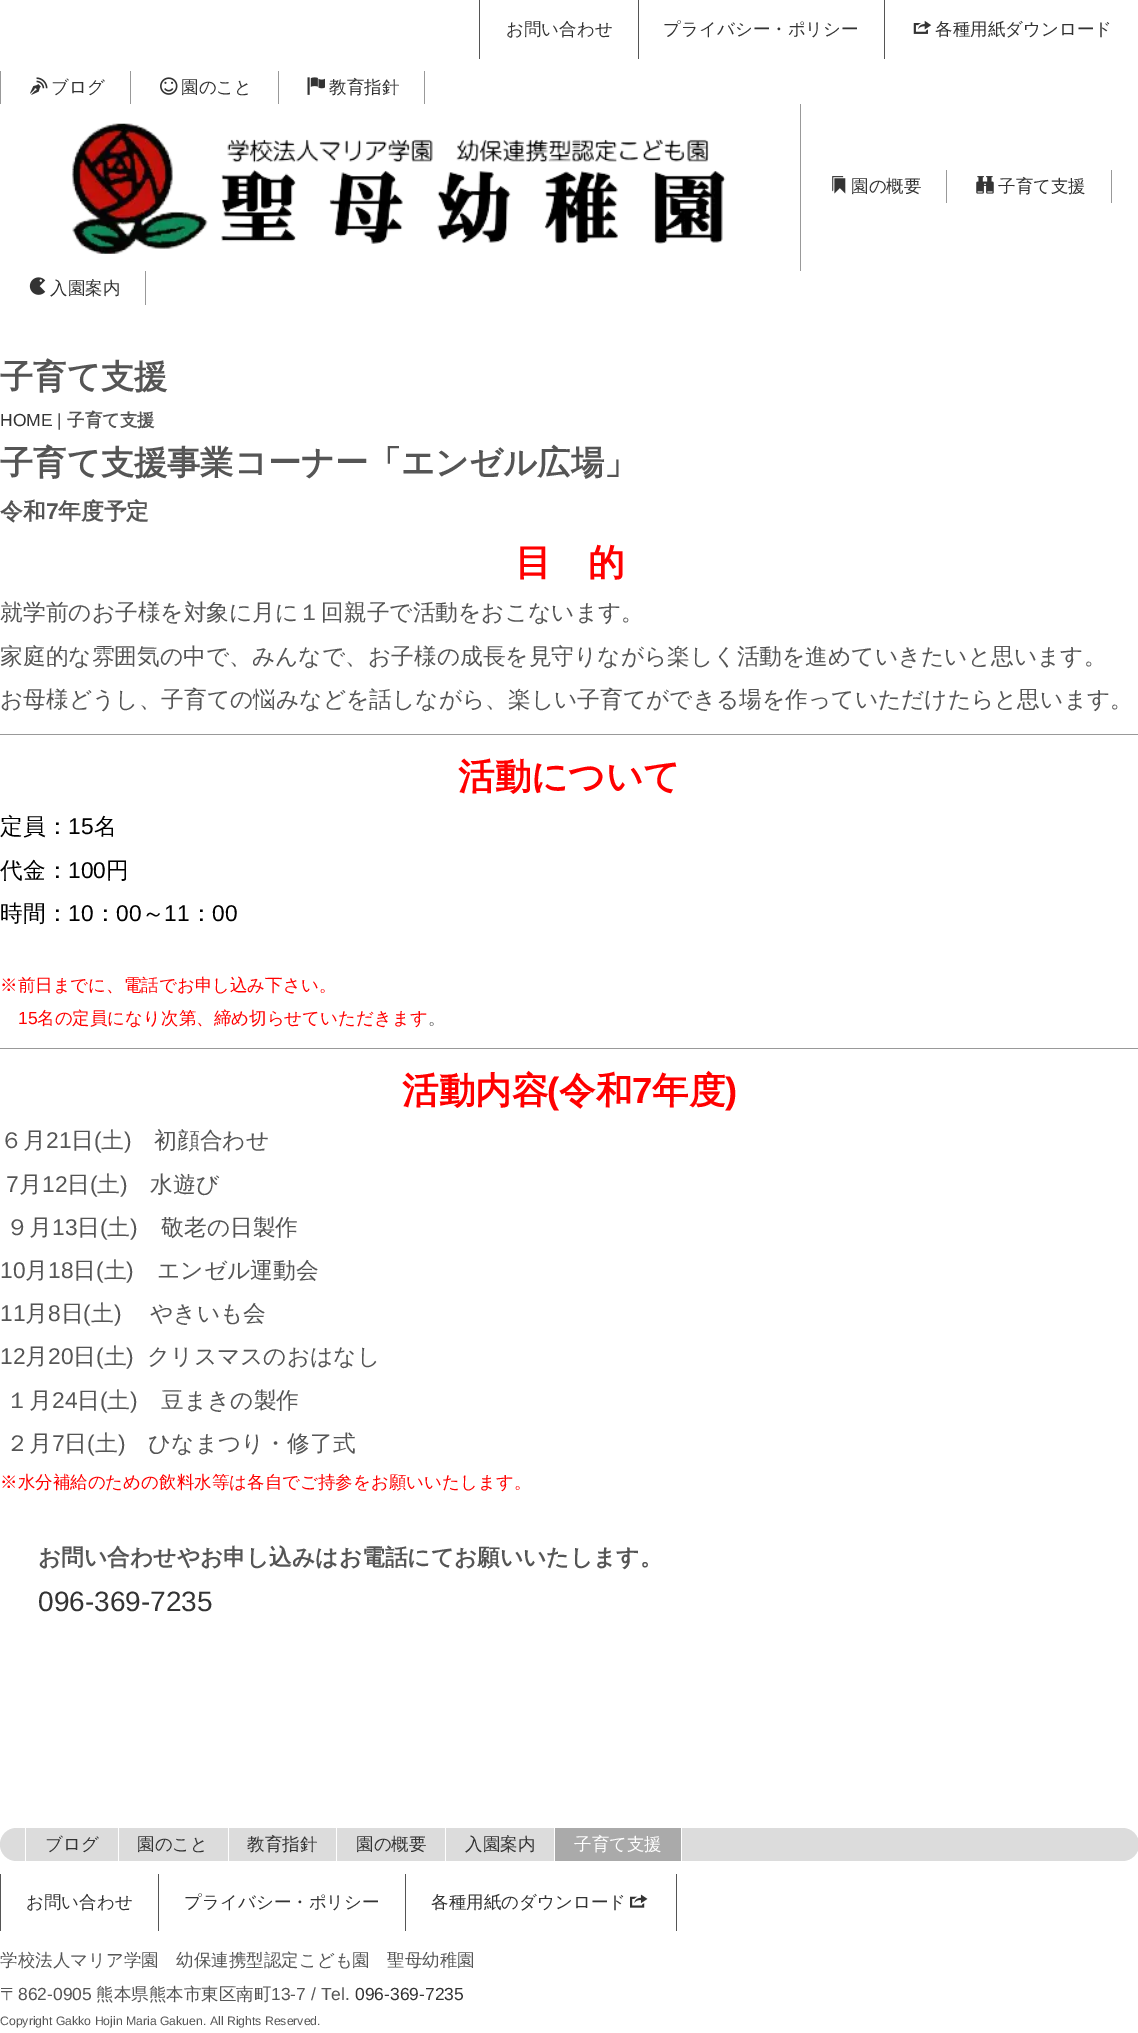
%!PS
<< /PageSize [1138 2033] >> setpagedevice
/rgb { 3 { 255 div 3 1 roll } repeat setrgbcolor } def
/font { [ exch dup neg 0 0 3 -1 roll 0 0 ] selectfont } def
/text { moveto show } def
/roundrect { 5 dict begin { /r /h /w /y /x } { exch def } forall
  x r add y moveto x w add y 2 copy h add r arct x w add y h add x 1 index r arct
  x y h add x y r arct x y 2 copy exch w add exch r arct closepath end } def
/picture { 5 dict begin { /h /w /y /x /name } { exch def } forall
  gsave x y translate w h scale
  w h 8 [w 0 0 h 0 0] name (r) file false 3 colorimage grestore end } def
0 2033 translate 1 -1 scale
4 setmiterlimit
255 255 255 rgb
0 0 1138 2033 rectfill
85 85 85 rgb
638 0 1 59 rectfill
479 0 1 59 rectfill
884 0 1 59 rectfill
(img_01.rgb) 913 20 19 14 picture
153 153 153 rgb
130 71 1 33 rectfill
0 71 1 33 rectfill
(img_02.rgb) 30 77 18 18 picture
278 71 1 33 rectfill
(img_03.rgb) 160 77 18 18 picture
424 71 1 33 rectfill
(img_04.rgb) 307 77 18 18 picture
800 104 1 167 rectfill
(img_05.rgb) 71 123 655 131 picture
946 170 1 33 rectfill
(img_06.rgb) 832 176 14 18 picture
1111 170 1 33 rectfill
(img_07.rgb) 976 176 18 18 picture
145 271 1 34 rectfill
(img_08.rgb) 29 277 17 18 picture
0 734 1138 1 rectfill
0 1048 1138 1 rectfill
220 220 220 rgb
0 1828 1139 33 16.5 roundrect fill
255 255 255 rgb
118 1828 1 33 rectfill
25 1828 1 33 rectfill
228 1828 1 33 rectfill
336 1828 1 33 rectfill
445 1828 1 33 rectfill
554 1828 1 33 rectfill
681 1828 1 33 rectfill
170 170 170 rgb
555 1828 126 33 rectfill
85 85 85 rgb
158 1874 1 57 rectfill
0 1874 1 57 rectfill
405 1874 1 57 rectfill
676 1874 1 57 rectfill
(img_09.rgb) 630 1894 18 14 picture
/WenQuanYiZenHei-Medium 17.5 font
51 51 51 rgb
(お問い合わせ) 506 35 text
(プライバシー・ポリシー) 663 35 text
(各種用紙ダウンロード) 935 35 text
(ブログ) 51 93 text
(園のこと) 181 93 text
(教育指針) 329 93 text
(園の概要) 851 192 text
(子育て支援) 998 192 text
(入園案内) 50 294 text
/WenQuanYiZenHei-Bold 33.25 font
85 85 85 rgb
(子育て支援) 0 388 text
/LiberationSans-Regular 17.5 font
51 51 51 rgb
(HOME) 0 426 text
85 85 85 rgb
(|) 57 426 text
/WenQuanYiZenHei-Bold 17.5 font
(子育て支援) 67 426 text
/WenQuanYiZenHei-Bold 33.25 font
(子育て支援事業コーナー「エンゼル広場」) 0 474 text
/WenQuanYiZenHei-Bold 22.75 font
(令和) 0 519 text
/LiberationSans-Bold 22.75 font
(7) 46 519 text
/WenQuanYiZenHei-Bold 22.75 font
(年度予定) 58 519 text
/WenQuanYiZenHei-Bold 36.5 font
255 0 0 rgb
(目　的) 515 575 text
/WenQuanYiZenHei-Medium 22.75 font
85 85 85 rgb
(就学前のお子様を対象に月に１回親子で活動をおこないます。) 0 620 text
(家庭的な雰囲気の中で、みんなで、お子様の成長を見守りながら楽しく活動を進めていきたいと思います。) 0 664 text
(お母様どうし、子育ての悩みなどを話しながら、楽しい子育てができる場を作っていただけたらと思います。) 0 707 text
/WenQuanYiZenHei-Bold 36.5 font
255 0 0 rgb
(活動について) 458 789 text
/WenQuanYiZenHei-Medium 22.75 font
0 0 0 rgb
(定員：) 0 834 text
/LiberationSans-Regular 22.75 font
(15) 68 834 text
/WenQuanYiZenHei-Medium 22.75 font
(名) 94 834 text
(代金：) 0 878 text
/LiberationSans-Regular 22.75 font
(100) 68 878 text
/WenQuanYiZenHei-Medium 22.75 font
(円) 106 878 text
(時間：) 0 921 text
/LiberationSans-Regular 22.75 font
(10) 68 921 text
/WenQuanYiZenHei-Medium 22.75 font
(：) 94 921 text
/LiberationSans-Regular 22.75 font
(00) 116 921 text
/WenQuanYiZenHei-Medium 22.75 font
(～) 142 921 text
/LiberationSans-Regular 22.75 font
(11) 164 921 text
/WenQuanYiZenHei-Medium 22.75 font
(：) 190 921 text
/LiberationSans-Regular 22.75 font
(00) 212 921 text
/WenQuanYiZenHei-Medium 17.5 font
255 0 0 rgb
(※前日までに、電話でお申し込み下さい。) 0 991 text
/LiberationSans-Regular 17.5 font
(15) 18 1024 text
/WenQuanYiZenHei-Medium 17.5 font
(名の定員になり次第、締め切らせていただきます) 37 1024 text
85 85 85 rgb
(。) 428 1024 text
/WenQuanYiZenHei-Bold 36.5 font
255 0 0 rgb
(活動内容) 402 1103 text
/LiberationSans-Bold 36.5 font
(\() 547 1103 text
/WenQuanYiZenHei-Bold 36.5 font
(令和) 559 1103 text
/LiberationSans-Bold 36.5 font
(7) 632 1103 text
/WenQuanYiZenHei-Bold 36.5 font
(年度) 652 1103 text
/LiberationSans-Bold 36.5 font
(\)) 725 1103 text
/WenQuanYiZenHei-Medium 22.75 font
85 85 85 rgb
(６月) 0 1148 text
/LiberationSans-Regular 22.75 font
(21) 46 1148 text
/WenQuanYiZenHei-Medium 22.75 font
(日) 71 1148 text
/LiberationSans-Regular 22.75 font
(\() 94 1148 text
/WenQuanYiZenHei-Medium 22.75 font
(土) 101 1148 text
/LiberationSans-Regular 22.75 font
(\)) 124 1148 text
/WenQuanYiZenHei-Medium 22.75 font
(初顔合わせ) 154 1148 text
/LiberationSans-Regular 22.75 font
(7) 6 1192 text
/WenQuanYiZenHei-Medium 22.75 font
(月) 19 1192 text
/LiberationSans-Regular 22.75 font
(12) 42 1192 text
/WenQuanYiZenHei-Medium 22.75 font
(日) 67 1192 text
/LiberationSans-Regular 22.75 font
(\() 90 1192 text
/WenQuanYiZenHei-Medium 22.75 font
(土) 97 1192 text
/LiberationSans-Regular 22.75 font
(\)) 120 1192 text
/WenQuanYiZenHei-Medium 22.75 font
(水遊び) 150 1192 text
(９月) 6 1235 text
/LiberationSans-Regular 22.75 font
(13) 52 1235 text
/WenQuanYiZenHei-Medium 22.75 font
(日) 77 1235 text
/LiberationSans-Regular 22.75 font
(\() 100 1235 text
/WenQuanYiZenHei-Medium 22.75 font
(土) 107 1235 text
/LiberationSans-Regular 22.75 font
(\)) 130 1235 text
/WenQuanYiZenHei-Medium 22.75 font
(敬老の日製作) 161 1235 text
/LiberationSans-Regular 22.75 font
(10) 0 1278 text
/WenQuanYiZenHei-Medium 22.75 font
(月) 25 1278 text
/LiberationSans-Regular 22.75 font
(18) 48 1278 text
/WenQuanYiZenHei-Medium 22.75 font
(日) 73 1278 text
/LiberationSans-Regular 22.75 font
(\() 96 1278 text
/WenQuanYiZenHei-Medium 22.75 font
(土) 104 1278 text
/LiberationSans-Regular 22.75 font
(\)) 126 1278 text
/WenQuanYiZenHei-Medium 22.75 font
(エンゼル運動会) 157 1278 text
/LiberationSans-Regular 22.75 font
(11) 0 1321 text
/WenQuanYiZenHei-Medium 22.75 font
(月) 25 1321 text
/LiberationSans-Regular 22.75 font
(8) 48 1321 text
/WenQuanYiZenHei-Medium 22.75 font
(日) 61 1321 text
/LiberationSans-Regular 22.75 font
(\() 83 1321 text
/WenQuanYiZenHei-Medium 22.75 font
(土) 91 1321 text
/LiberationSans-Regular 22.75 font
(\)) 114 1321 text
/WenQuanYiZenHei-Medium 22.75 font
(やきいも会) 150 1321 text
/LiberationSans-Regular 22.75 font
(12) 0 1364 text
/WenQuanYiZenHei-Medium 22.75 font
(月) 25 1364 text
/LiberationSans-Regular 22.75 font
(20) 48 1364 text
/WenQuanYiZenHei-Medium 22.75 font
(日) 73 1364 text
/LiberationSans-Regular 22.75 font
(\() 96 1364 text
/WenQuanYiZenHei-Medium 22.75 font
(土) 104 1364 text
/LiberationSans-Regular 22.75 font
(\)) 126 1364 text
/WenQuanYiZenHei-Medium 22.75 font
(クリスマスのおはなし) 147 1364 text
(１月) 6 1408 text
/LiberationSans-Regular 22.75 font
(24) 52 1408 text
/WenQuanYiZenHei-Medium 22.75 font
(日) 77 1408 text
/LiberationSans-Regular 22.75 font
(\() 100 1408 text
/WenQuanYiZenHei-Medium 22.75 font
(土) 107 1408 text
/LiberationSans-Regular 22.75 font
(\)) 130 1408 text
/WenQuanYiZenHei-Medium 22.75 font
(豆まきの製作) 161 1408 text
(２月) 6 1451 text
/LiberationSans-Regular 22.75 font
(7) 52 1451 text
/WenQuanYiZenHei-Medium 22.75 font
(日) 64 1451 text
/LiberationSans-Regular 22.75 font
(\() 87 1451 text
/WenQuanYiZenHei-Medium 22.75 font
(土) 95 1451 text
/LiberationSans-Regular 22.75 font
(\)) 118 1451 text
/WenQuanYiZenHei-Medium 22.75 font
(ひなまつり・修了式) 148 1451 text
/WenQuanYiZenHei-Medium 17.5 font
255 0 0 rgb
(※水分補給のための飲料水等は各自でご持参をお願いいたします。) 0 1488 text
/WenQuanYiZenHei-Bold 22.75 font
85 85 85 rgb
(お問い合わせやお申し込みはお電話にてお願いいたします。) 38 1565 text
/LiberationSans-Regular 28 font
51 51 51 rgb
(096-369-7235) 38 1611 text
/WenQuanYiZenHei-Medium 17.5 font
(ブログ) 45 1850 text
(園のこと) 137 1850 text
(教育指針) 247 1850 text
(園の概要) 356 1850 text
(入園案内) 465 1850 text
255 255 255 rgb
(子育て支援) 574 1850 text
51 51 51 rgb
(お問い合わせ) 26 1908 text
(プライバシー・ポリシー) 184 1908 text
(各種用紙のダウンロード) 431 1908 text
85 85 85 rgb
(学校法人マリア学園　幼保連携型認定こども園　聖母幼稚園) 0 1966 text
(〒) 0 2000 text
/LiberationSans-Regular 17.5 font
(862-0905) 18 2000 text
/WenQuanYiZenHei-Medium 17.5 font
(熊本県熊本市東区南町) 96 2000 text
/LiberationSans-Regular 17.5 font
(13-7 / Tel.) 271 2000 text
51 51 51 rgb
(096-369-7235) 355 2000 text
/LiberationSans-Regular 12.25 font
85 85 85 rgb
(Copyright Gakko Hojin Maria Gakuen. All Rights Reserved.) 0 2025 text
showpage
